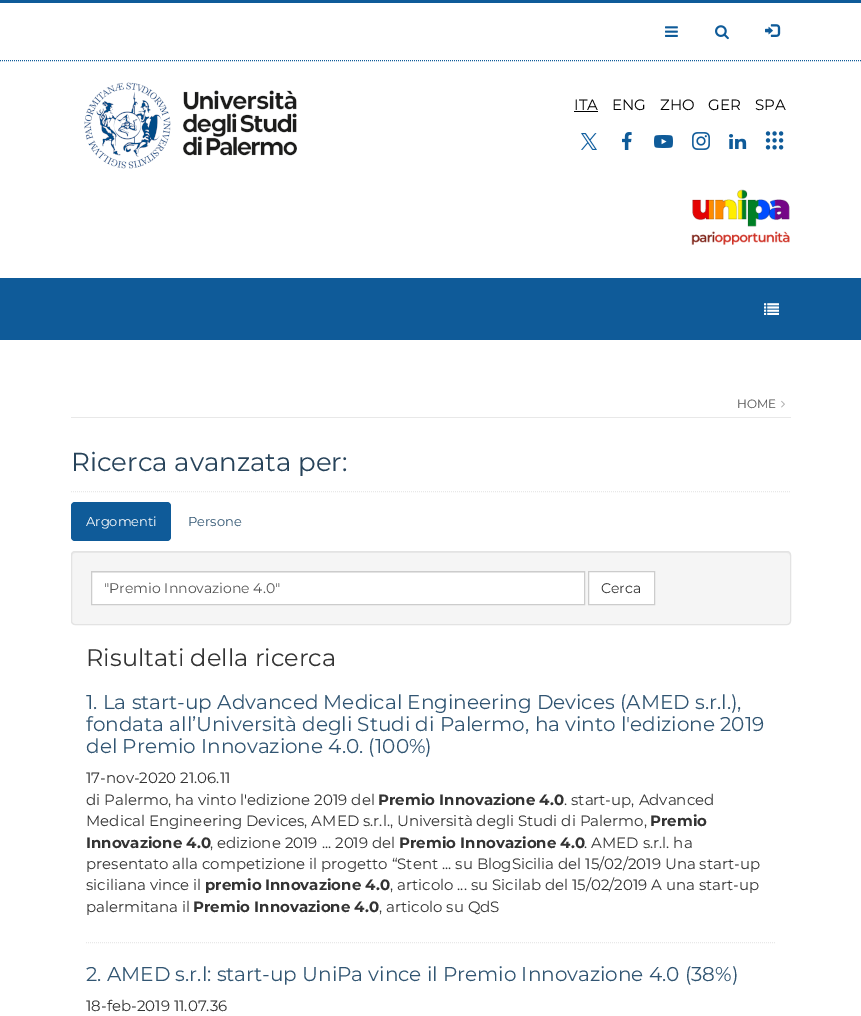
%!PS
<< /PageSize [861 1016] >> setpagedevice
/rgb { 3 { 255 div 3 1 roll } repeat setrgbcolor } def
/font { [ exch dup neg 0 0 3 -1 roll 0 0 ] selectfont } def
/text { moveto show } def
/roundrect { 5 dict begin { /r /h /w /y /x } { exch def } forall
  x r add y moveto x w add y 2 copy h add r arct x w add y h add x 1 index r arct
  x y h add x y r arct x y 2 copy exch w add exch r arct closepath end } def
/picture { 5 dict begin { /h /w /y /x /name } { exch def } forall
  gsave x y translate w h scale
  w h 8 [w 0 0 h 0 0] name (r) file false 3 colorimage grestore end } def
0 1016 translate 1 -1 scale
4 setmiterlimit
255 255 255 rgb
0 0 861 1016 rectfill
15 91 153 rgb
0 0 861 3 rectfill
[1 1] 0 setdash
0 60.5 moveto 861 0 rlineto stroke
(img_01.rgb) 665 26 13 11 picture
(img_02.rgb) 715 25 14 15 picture
(img_03.rgb) 765 24 16 13 picture
(img_04.rgb) 84 82 213 87 picture
0 0 0 rgb
574 111 24 1 rectfill
(img_05.rgb) 581 133 16 17 picture
(img_06.rgb) 622 132 10 18 picture
(img_07.rgb) 654 135 19 13 picture
(img_08.rgb) 692 132 18 18 picture
(img_09.rgb) 729 134 18 15 picture
(img_10.rgb) 765 131 19 19 picture
(img_11.rgb) 691 189 99 56 picture
15 91 153 rgb
0 278 861 62 rectfill
(img_12.rgb) 764 303 15 12 picture
232 232 232 rgb
71 417 720 1 rectfill
(img_13.rgb) 781 400 4 8 picture
71 491.5 moveto 720 0 rlineto stroke
15 91 153 rgb
71 502 100 39 4 roundrect fill
245 245 245 rgb
71 551 720 74 4 roundrect fill
233 233 233 rgb
75 553 moveto 712 0 rlineto 2 0 3 1 3 3 rcurveto 0 -2 -1 -4 -3 -4 rcurveto -712 0 rlineto -2 0 -3 2 -3 4 rcurveto 0 -2 1 -3 3 -3 rcurveto closepath fill
227 227 227 rgb
[] 0 setdash
71.5 551.5 719 73 3.5 roundrect stroke
255 255 255 rgb
92 573 492 31 rectfill
236 236 236 rgb
92 572 492 1 rectfill
204 204 204 rgb
91.5 571.5 493 33 rectstroke
255 255 255 rgb
588.5 571.5 moveto 66 0 rlineto 0 33 rlineto -66 0 rlineto closepath gsave fill grestore
204 204 204 rgb
stroke
232 232 232 rgb
[1 1] 0 setdash
86 942.5 moveto 690 0 rlineto stroke
/Montserrat-Regular 15 font
0 0 0 rgb
(ITA) 574 110 text
(ENG) 612 110 text
(ZHO) 660 110 text
(GER) 708 110 text
(SPA) 755 110 text
/Montserrat-Regular 12 font
85 85 85 rgb
(HOME) 737 408 text
/Montserrat-Regular 26 font
39 67 90 rgb
(Ricerca avanzata per:) 71 471 text
/Montserrat-Regular 13 font
255 255 255 rgb
(Argomenti) 86 526 text
49 85 114 rgb
(Persone) 188 526 text
/Montserrat-Regular 14 font
85 85 85 rgb
("Premio Innovazione 4.0") 104 593 text
51 51 51 rgb
(Cerca) 601 593 text
/Montserrat-Regular 24 font
(Risultati della ricerca) 86 666 text
/Montserrat-Regular 20 font
49 85 114 rgb
(1. La start-up Advanced Medical Engineering Devices \(AMED s.r.l.\),) 86 709 text
(fondata all’Università degli Studi di Palermo, ha vinto l'edizione 2019) 86 731 text
(del Premio Innovazione 4.0. \(100%\)) 86 753 text
/Montserrat-Regular 15 font
51 51 51 rgb
(17-nov-2020 21.06.11) 86 783 text
(di Palermo, ha vinto l'edizione 2019 del) 86 805 text
/Montserrat-Bold 15 font
(Premio Innovazione 4.0) 378 805 text
/Montserrat-Regular 15 font
(. start-up, Advanced) 564 805 text
(Medical Engineering Devices, AMED s.r.l., Università degli Studi di Palermo,) 86 826 text
/Montserrat-Bold 15 font
(Premio) 650 826 text
(Innovazione 4.0) 86 848 text
/Montserrat-Regular 15 font
(, edizione 2019 ... 2019 del) 210 848 text
/Montserrat-Bold 15 font
(Premio Innovazione 4.0) 399 848 text
/Montserrat-Regular 15 font
(. AMED s.r.l. ha) 584 848 text
(presentato alla competizione il progetto “Stent ... su BlogSicilia del 15/02/2019 Una start-up) 86 869 text
(siciliana vince il) 86 890 text
/Montserrat-Bold 15 font
(premio) 205 890 text
(Innovazione 4.0) 265 890 text
/Montserrat-Regular 15 font
(, articolo ... su Sicilab del 15/02/2019 A una start-up) 390 890 text
(palermitana il) 86 912 text
/Montserrat-Bold 15 font
(Premio Innovazione 4.0) 193 912 text
/Montserrat-Regular 15 font
(, articolo su QdS) 379 912 text
/Montserrat-Regular 20 font
49 85 114 rgb
(2. AMED s.r.l: start-up UniPa vince il Premio Innovazione 4.0 \(38%\)) 86 981 text
/Montserrat-Regular 15 font
51 51 51 rgb
(18-feb-2019 11.07.36) 86 1011 text
showpage
